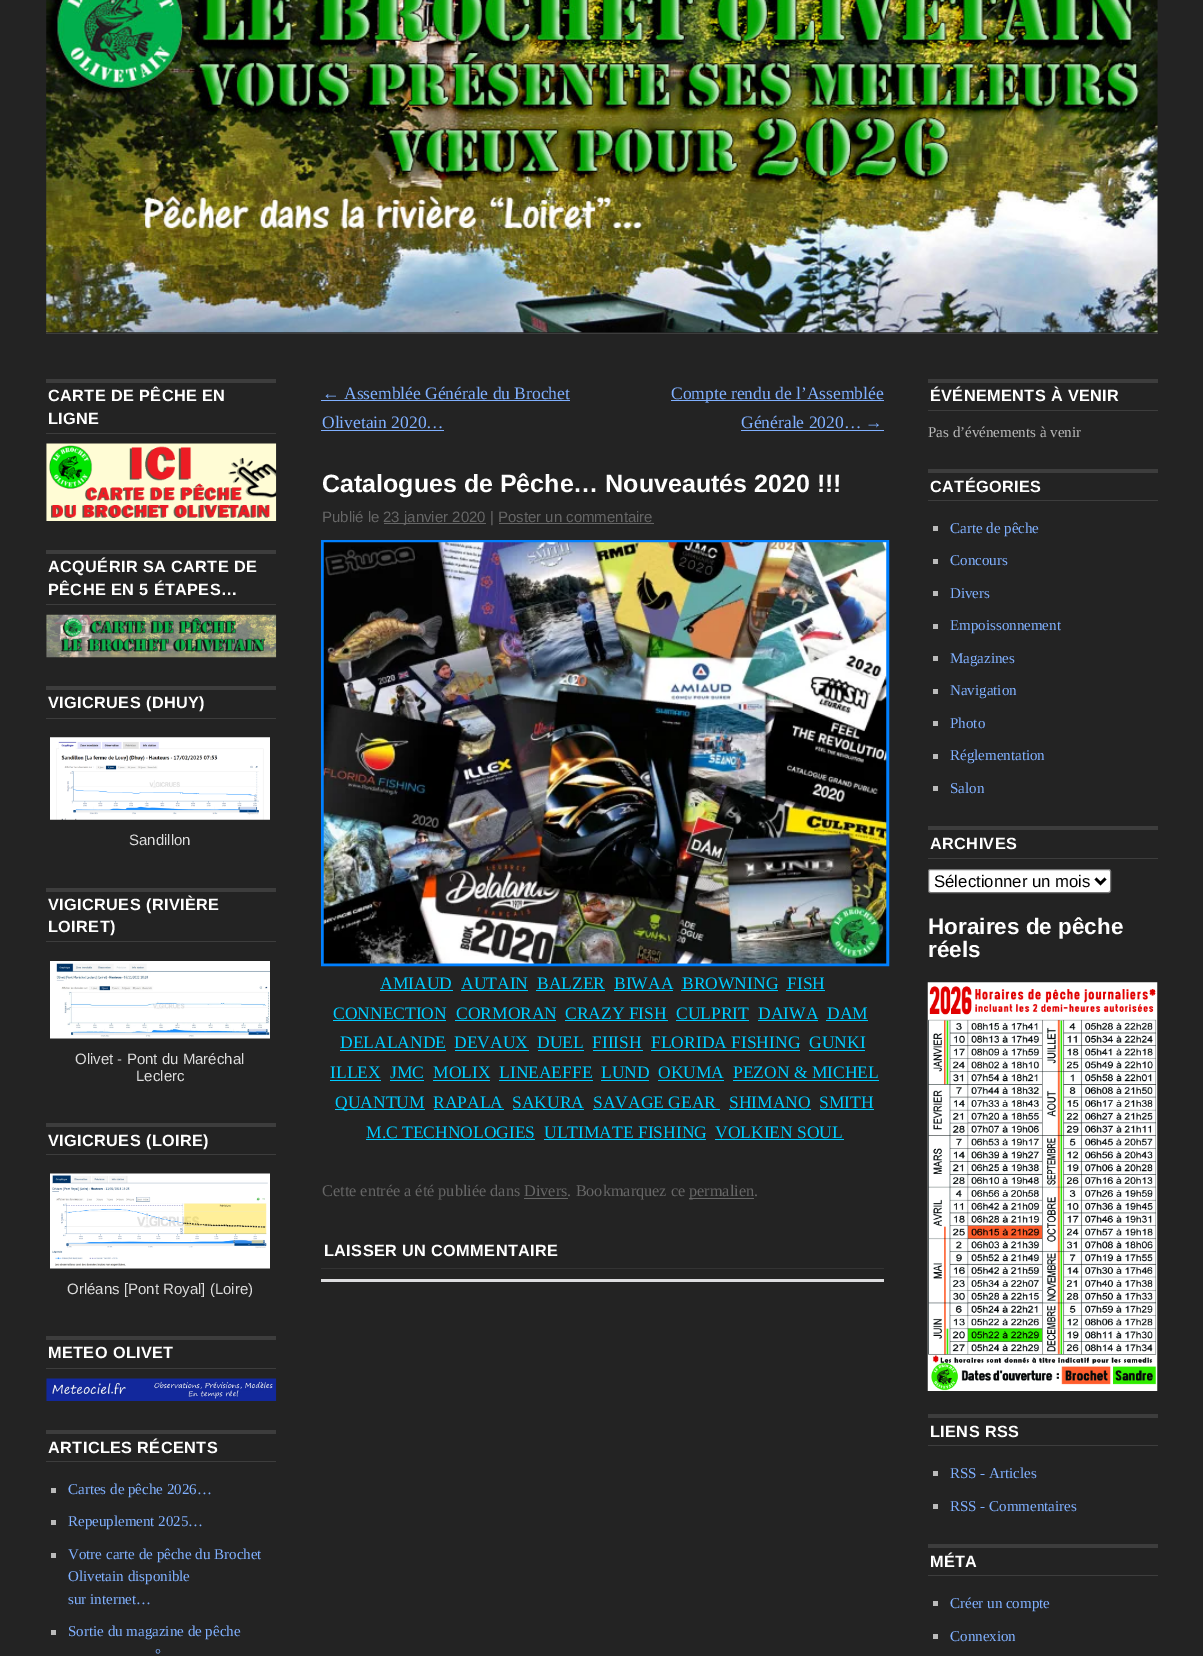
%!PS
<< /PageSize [1203 1656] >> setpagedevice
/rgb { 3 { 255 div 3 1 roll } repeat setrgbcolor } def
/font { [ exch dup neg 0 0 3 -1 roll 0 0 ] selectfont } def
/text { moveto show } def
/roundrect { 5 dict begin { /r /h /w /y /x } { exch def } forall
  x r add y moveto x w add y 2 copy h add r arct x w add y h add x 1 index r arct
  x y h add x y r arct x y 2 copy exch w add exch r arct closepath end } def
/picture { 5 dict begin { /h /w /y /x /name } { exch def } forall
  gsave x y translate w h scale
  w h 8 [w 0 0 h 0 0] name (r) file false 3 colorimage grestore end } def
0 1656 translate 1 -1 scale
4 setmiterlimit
35 35 35 rgb
0 0 1203 1656 rectfill
(img_01.rgb) 46 0 1112 333 picture
61 61 61 rgb
46 333 1112 1 rectfill
46 379 230 4 rectfill
46 433 230 1 rectfill
(img_02.rgb) 46 443 231 78 picture
46 550 230 4 rectfill
46 604 230 1 rectfill
(img_03.rgb) 46 614 231 44 picture
46 686 230 4 rectfill
46 718 230 1 rectfill
(img_04.rgb) 50 737 220 83 picture
46 888 230 4 rectfill
46 941 230 1 rectfill
(img_05.rgb) 50 961 220 78 picture
46 1123 230 4 rectfill
46 1154 230 1 rectfill
(img_06.rgb) 50 1173 220 96 picture
46 1336 230 4 rectfill
46 1368 230 1 rectfill
(img_07.rgb) 46 1378 231 23 picture
46 1430 230 4 rectfill
46 1461 230 1 rectfill
186 186 186 rgb
51 1488 5 5 rectfill
51 1520 5 5 rectfill
51 1553 5 5 rectfill
51 1630 5 5 rectfill
128 176 255 rgb
321 400 249 1 rectfill
321 430 123 1 rectfill
671 400 213 1 rectfill
741 430 143 1 rectfill
102 102 102 rgb
384 523 102 1 rectfill
499 523 155 1 rectfill
0 128 255 rgb
3 setlinewidth
322.5 541.5 565 423 rectstroke
(img_08.rgb) 323 542 564 422 picture
0 204 255 rgb
380 990 73 1 rectfill
461 990 67 1 rectfill
536 990 69 1 rectfill
614 990 59 1 rectfill
681 990 97 1 rectfill
786 990 39 1 rectfill
333 1020 113 1 rectfill
455 1020 101 1 rectfill
565 1020 103 1 rectfill
676 1020 73 1 rectfill
758 1020 60 1 rectfill
826 1020 42 1 rectfill
340 1050 106 1 rectfill
455 1050 74 1 rectfill
538 1050 46 1 rectfill
593 1050 50 1 rectfill
651 1050 149 1 rectfill
809 1050 56 1 rectfill
330 1080 51 1 rectfill
390 1080 34 1 rectfill
433 1080 57 1 rectfill
499 1080 94 1 rectfill
601 1080 48 1 rectfill
658 1080 66 1 rectfill
733 1080 146 1 rectfill
335 1109 90 1 rectfill
434 1109 70 1 rectfill
513 1109 71 1 rectfill
593 1109 127 1 rectfill
729 1109 82 1 rectfill
820 1109 54 1 rectfill
366 1139 169 1 rectfill
544 1139 162 1 rectfill
715 1139 129 1 rectfill
102 102 102 rgb
689 1198 65 1 rectfill
524 1198 44 1 rectfill
51 51 51 rgb
321 1268 563 1 rectfill
220 220 222 rgb
321 1279 563 3 rectfill
61 61 61 rgb
928 379 230 4 rectfill
928 410 230 1 rectfill
928 469 230 4 rectfill
928 500 230 1 rectfill
186 186 186 rgb
933 526 5 5 rectfill
933 559 5 5 rectfill
933 591 5 5 rectfill
933 624 5 5 rectfill
933 656 5 5 rectfill
933 689 5 5 rectfill
933 721 5 5 rectfill
933 754 5 5 rectfill
933 786 5 5 rectfill
61 61 61 rgb
928 826 230 4 rectfill
928 858 230 1 rectfill
255 255 255 rgb
928.5 869.5 182 23 2 roundrect gsave fill grestore
118 118 118 rgb
1 setlinewidth
stroke
0 0 0 rgb
2.5 setlinewidth
1095.5 878.5 moveto 5 5 rlineto 5 -5 rlineto stroke
(img_09.rgb) 927 982 231 409 picture
61 61 61 rgb
928 1414 230 4 rectfill
928 1445 230 1 rectfill
186 186 186 rgb
933 1471 5 5 rectfill
933 1504 5 5 rectfill
61 61 61 rgb
928 1544 230 4 rectfill
928 1575 230 1 rectfill
186 186 186 rgb
933 1601 5 5 rectfill
933 1634 5 5 rectfill
/LiberationSans-Bold 16.25 font
255 255 255 rgb
48 401 moveto 0.4 0 (CARTE DE PÊCHE EN) ashow
48 424 moveto 0.4 0 (LIGNE) ashow
48 572 moveto 0.4 0 (ACQUÉRIR SA CARTE DE) ashow
48 595 moveto 0.4 0 (PÊCHE EN 5 ÉTAPES…) ashow
48 708 moveto 0.4 0 (VIGICRUES \(DHUY\)) ashow
/LiberationSans-Regular 15 font
221 221 221 rgb
(Sandillon) 129 845 text
/LiberationSans-Bold 16.25 font
255 255 255 rgb
48 910 moveto 0.4 0 (VIGICRUES \(RIVIÈRE) ashow
48 932 moveto 0.4 0 (LOIRET\)) ashow
/LiberationSans-Regular 15 font
221 221 221 rgb
(Olivet - Pont du Maréchal) 75 1064 text
(Leclerc) 136 1081 text
/LiberationSans-Bold 16.25 font
255 255 255 rgb
48 1146 moveto 0.4 0 (VIGICRUES \(LOIRE\)) ashow
/LiberationSans-Regular 15 font
221 221 221 rgb
(Orléans [Pont Royal] \(Loire\)) 67 1294 text
/LiberationSans-Bold 16.25 font
255 255 255 rgb
48 1358 moveto 0.4 0 (METEO OLIVET) ashow
48 1453 moveto 0.4 0 (ARTICLES RÉCENTS) ashow
/LiberationSerif-Regular 15 font
128 176 255 rgb
(Cartes de pêche 2026…) 68 1494 text
(Repeuplement 2025…) 68 1526 text
(Votre carte de pêche du Brochet) 68 1559 text
(Olivetain disponible) 68 1581 text
(sur internet…) 68 1604 text
(Sortie du magazine de pêche) 68 1636 text
(°) 155 1659 text
/LiberationSerif-Regular 17.5 font
(← Assemblée Générale du Brochet) 322 399 text
(Olivetain 2020…) 322 428 text
(Compte rendu de l’Assemblée) 671 399 text
(Générale 2020… →) 741 428 text
/LiberationSans-Bold 25 font
255 255 255 rgb
(Catalogues de Pêche… Nouveautés 2020 !!!) 322 492 text
/LiberationSans-Regular 15 font
102 102 102 rgb
(Publié le) 322 522 text
(23 janvier 2020 | Poster un commentaire) 383 522 text
/LiberationSerif-Regular 17.5 font
0 204 255 rgb
(AMIAUD) 380 989 text
(AUTAIN) 461 989 text
(BALZER) 537 989 text
(BIWAA) 614 989 text
(BROWNING) 682 989 text
(FISH) 787 989 text
(CONNECTION) 333 1019 text
(CORMORAN) 456 1019 text
(CRAZY FISH) 565 1019 text
(CULPRIT) 676 1019 text
(DAIWA) 758 1019 text
(DAM) 827 1019 text
(DELALANDE) 340 1048 text
(DEVAUX) 454 1048 text
(DUEL) 537 1048 text
(FIIISH) 592 1048 text
(FLORIDA FISHING) 651 1048 text
(GUNKI) 809 1048 text
(ILLEX) 330 1078 text
(JMC) 390 1078 text
(MOLIX) 433 1078 text
(LINEAEFFE) 499 1078 text
(LUND) 601 1078 text
(OKUMA) 658 1078 text
(PEZON & MICHEL) 733 1078 text
(QUANTUM) 335 1108 text
(RAPALA) 433 1108 text
(SAKURA) 512 1108 text
(SAVAGE GEAR) 593 1108 text
(SHIMANO) 729 1108 text
(SMITH) 819 1108 text
(M.C TECHNOLOGIES) 366 1138 text
(ULTIMATE FISHING) 544 1138 text
(VOLKIEN SOUL) 715 1138 text
/LiberationSerif-Regular 16.25 font
102 102 102 rgb
(Cette entrée a été publiée dans Divers. Bookmarquez ce) 322 1196 text
(permalien.) 689 1196 text
/LiberationSans-Bold 16.25 font
255 255 255 rgb
324 1256 moveto 0.4 0 (LAISSER UN COMMENTAIRE) ashow
930 401 moveto 0.4 0 (ÉVÉNEMENTS À VENIR) ashow
/LiberationSerif-Regular 15 font
186 186 186 rgb
(Pas d’événements à venir) 928 437 text
/LiberationSans-Bold 16.25 font
255 255 255 rgb
930 492 moveto 0.4 0 (CATÉGORIES) ashow
/LiberationSerif-Regular 15 font
128 176 255 rgb
(Carte de pêche) 950 533 text
(Concours) 950 565 text
(Divers) 950 598 text
(Empoissonnement) 950 630 text
(Magazines) 950 663 text
(Navigation) 950 695 text
(Photo) 950 728 text
(Réglementation) 950 760 text
(Salon) 950 793 text
/LiberationSans-Bold 16.25 font
255 255 255 rgb
930 849 moveto 0.4 0 (ARCHIVES) ashow
/LiberationSans-Regular 16.75 font
0 0 0 rgb
(Sélectionner un mois) 934 887 text
/LiberationSans-Bold 22.5 font
255 255 255 rgb
(Horaires de pêche) 928 934 text
(réels) 928 957 text
/LiberationSans-Bold 16.25 font
930 1437 moveto 0.4 0 (LIENS RSS) ashow
/LiberationSerif-Regular 15 font
128 176 255 rgb
(RSS - Articles) 950 1478 text
(RSS - Commentaires) 950 1511 text
/LiberationSans-Bold 16.25 font
255 255 255 rgb
930 1567 moveto 0.4 0 (MÉTA) ashow
/LiberationSerif-Regular 15 font
128 176 255 rgb
(Créer un compte) 950 1608 text
(Connexion) 950 1641 text
showpage
